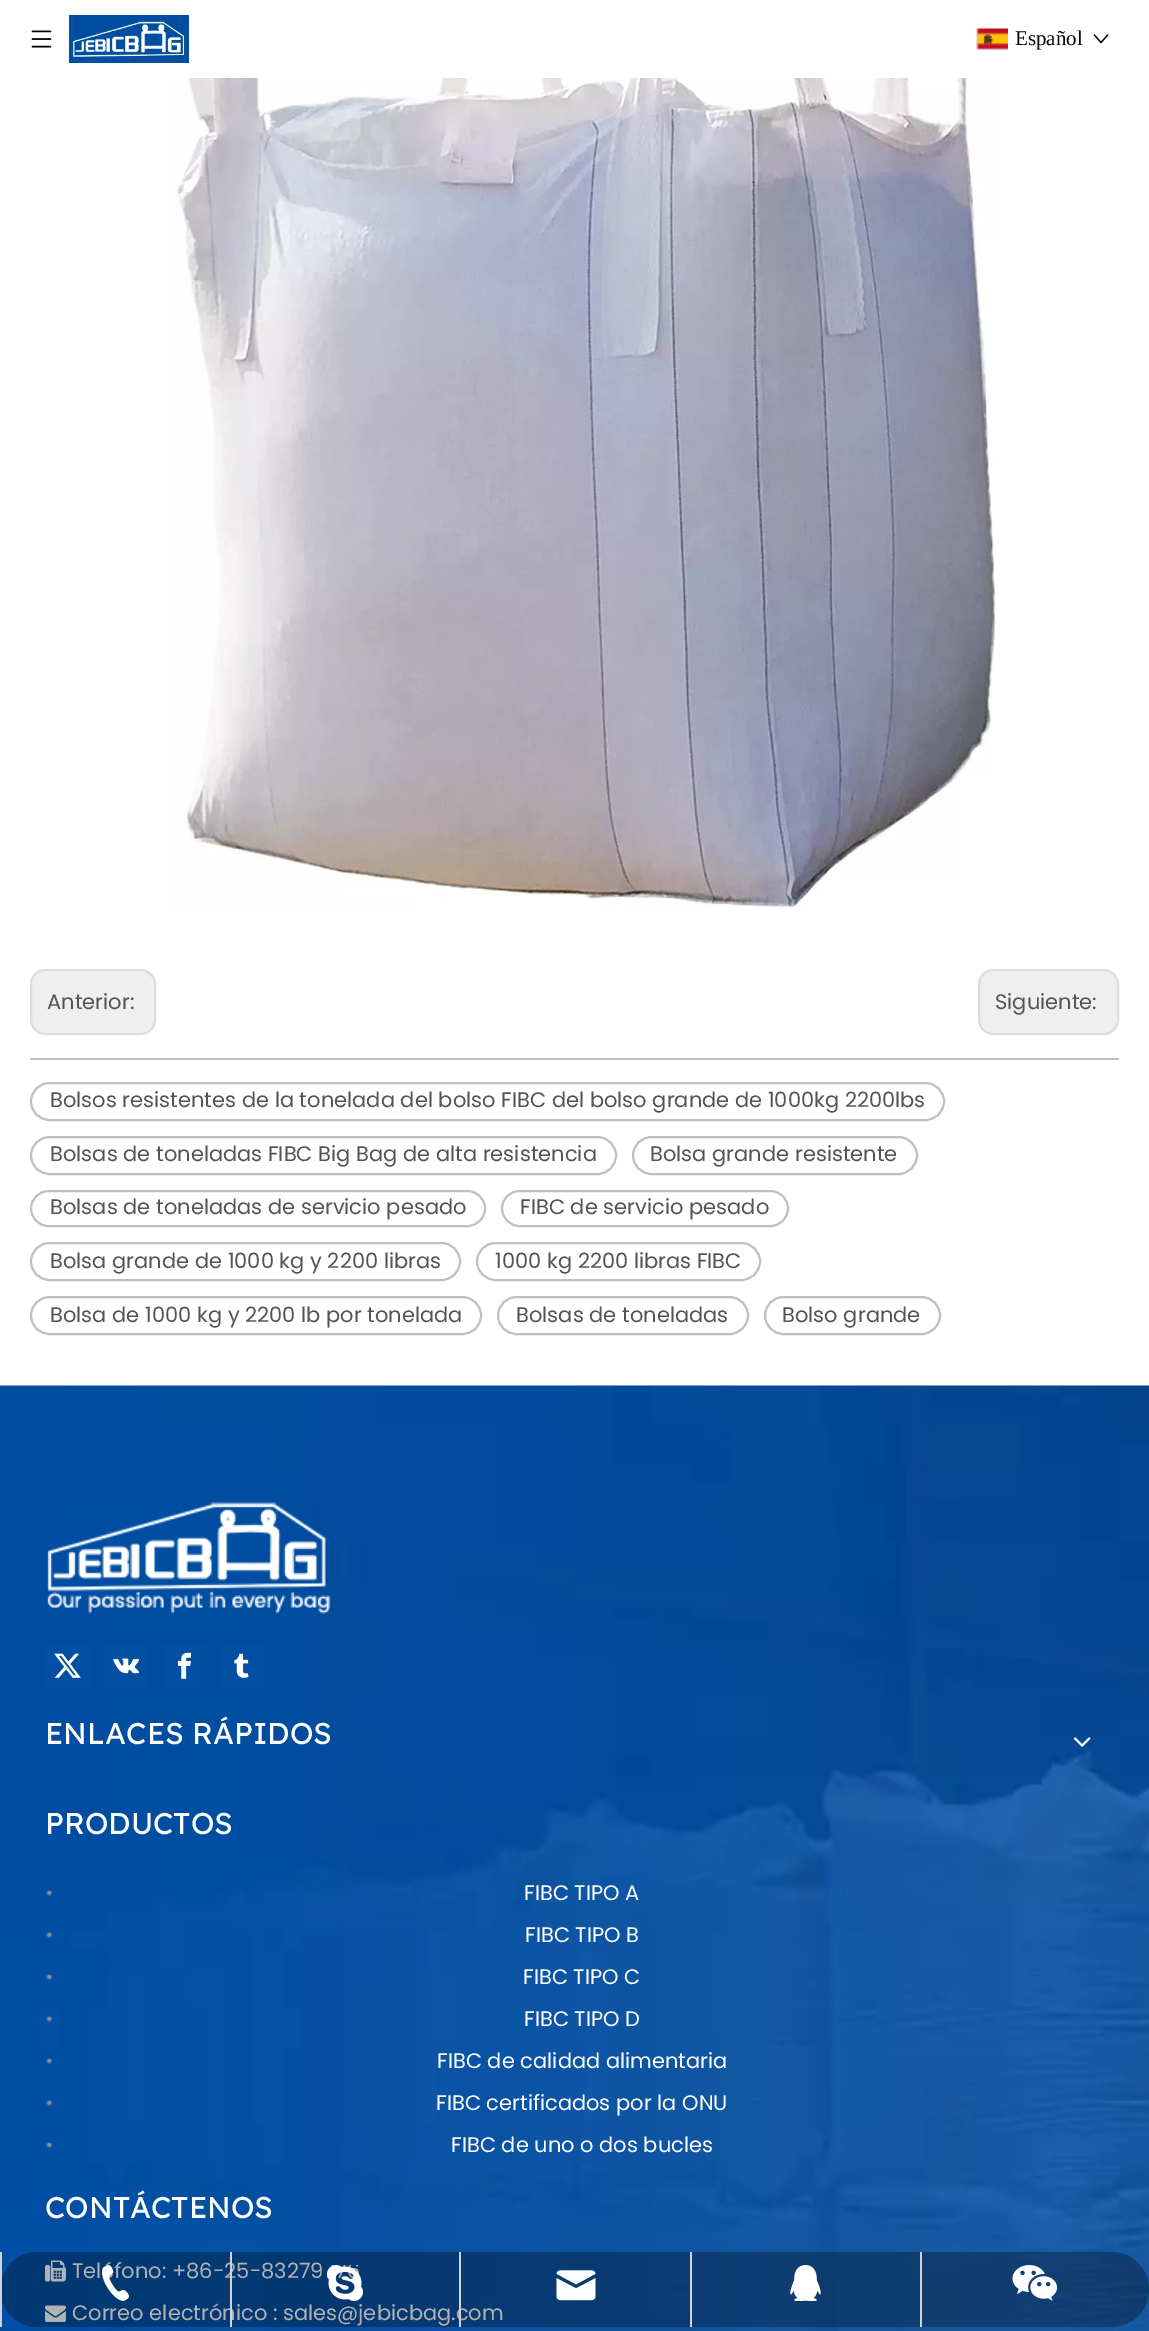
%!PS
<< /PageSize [1149 2331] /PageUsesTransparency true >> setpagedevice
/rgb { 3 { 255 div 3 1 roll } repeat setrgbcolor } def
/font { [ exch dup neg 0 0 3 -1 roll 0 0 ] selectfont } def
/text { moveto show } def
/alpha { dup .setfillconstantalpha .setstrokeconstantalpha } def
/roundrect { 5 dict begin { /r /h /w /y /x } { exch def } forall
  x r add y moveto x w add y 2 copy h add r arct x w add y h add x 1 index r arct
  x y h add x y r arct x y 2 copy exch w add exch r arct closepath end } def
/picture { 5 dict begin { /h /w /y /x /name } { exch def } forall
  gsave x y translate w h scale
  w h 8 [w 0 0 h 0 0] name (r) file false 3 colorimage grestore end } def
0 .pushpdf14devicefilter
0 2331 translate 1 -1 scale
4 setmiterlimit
255 255 255 rgb
0 0 1149 2331 rectfill
(img_01.rgb) 31 30 21 18 picture
(img_02.rgb) 69 15 120 48 picture
(img_03.rgb) 976 28 32 22 picture
(img_04.rgb) 1093 34 16 10 picture
(img_05.rgb) 167 78 829 830 picture
239 239 239 rgb
31 970 124 64 14 roundrect gsave fill grestore
221 221 221 rgb
2 setlinewidth
stroke
239 239 239 rgb
979 970 139 64 14 roundrect gsave fill grestore
221 221 221 rgb
stroke
192 192 192 rgb
30 1058 1089 2 rectfill
31 1083 913 37 18.5 roundrect stroke
31 1137 585 37 18.5 roundrect stroke
633 1137 284 37 18.5 roundrect stroke
31 1191 454 35 17.5 roundrect stroke
502 1191 286 35 17.5 roundrect stroke
31 1243 429 37 18.5 roundrect stroke
477 1243 283 37 18.5 roundrect stroke
31 1297 450 37 18.5 roundrect stroke
498 1297 250 37 18.5 roundrect stroke
765 1297 175 37 18.5 roundrect stroke
(img_06.rgb) 0 1385 1149 946 picture
(img_07.rgb) 47 1502 284 112 picture
3 79 163 rgb
45 1644 45 45 rectfill
(img_08.rgb) 54 1653 27 25 picture
3 80 162 rgb
104 1644 45 45 rectfill
(img_09.rgb) 113 1658 26 16 picture
162 1644 45 45 rectfill
(img_10.rgb) 178 1652 13 27 picture
219 1644 45 45 rectfill
(img_11.rgb) 234 1653 15 25 picture
(img_12.rgb) 1073 1737 18 10 picture
(img_13.rgb) 46 1889 7 7 picture
(img_14.rgb) 46 1931 7 7 picture
(img_14.rgb) 46 1973 7 7 picture
(img_15.rgb) 46 2015 7 7 picture
(img_14.rgb) 46 2057 7 7 picture
(img_14.rgb) 46 2099 7 7 picture
(img_14.rgb) 46 2141 7 7 picture
(img_16.rgb) 45 2260 21 22 picture
(img_17.rgb) 45 2305 21 17 picture
/LiberationSerif-Regular 21 font
0 0 0 rgb
(Español) 1015 45 text
/Poppins-Regular 21 font
84 84 84 rgb
(Anterior:) 47 1009 text
(Siguiente:) 995 1009 text
(Bolsos resistentes de la tonelada del bolso FIBC del bolso grande de 1000kg 2200lbs) 50 1107 text
(Bolsas de toneladas FIBC Big Bag de alta resistencia) 50 1161 text
(Bolsa grande resistente) 650 1161 text
(Bolsas de toneladas de servicio pesado) 50 1214 text
(FIBC de servicio pesado) 520 1214 text
(Bolsa grande de 1000 kg y 2200 libras) 50 1268 text
(1000 kg 2200 libras FIBC) 495 1268 text
(Bolsa de 1000 kg y 2200 lb por tonelada) 50 1322 text
(Bolsas de toneladas) 516 1322 text
(Bolso grande) 782 1322 text
/LexendDeca-Regular 30 font
255 255 255 rgb
(ENLACES RÁPIDOS) 45 1744 text
(PRODUCTOS) 45 1834 text
/Poppins-Regular 21 font
(FIBC TIPO A) 524 1900 text
(FIBC TIPO B) 525 1942 text
(FIBC TIPO C) 523 1984 text
(FIBC TIPO D) 524 2026 text
(FIBC de calidad alimentaria) 437 2068 text
(FIBC certificados por la ONU) 436 2110 text
(FIBC de uno o dos bucles) 451 2152 text
/LexendDeca-Regular 30 font
(CONTÁCTENOS) 45 2218 text
/Poppins-Regular 21 font
(Teléfono: +86-25-83279) 72 2278 text
(Correo electrónico : sales@jebicbag.com) 72 2320 text
0.3 alpha
0 0 0 rgb
0 2252 1149 75 37.5 roundrect fill
1 alpha
211 211 211 rgb
0 2252 2 75 rectfill
(img_18.rgb) 102 2265 27 36 picture
230 2252 2 75 rectfill
(img_19.rgb) 327 2265 36 36 picture
459 2252 2 75 rectfill
(img_20.rgb) 556 2270 40 31 picture
690 2252 2 75 rectfill
(img_21.rgb) 790 2265 31 36 picture
920 2252 2 75 rectfill
(img_22.rgb) 1012 2265 46 36 picture
.poppdf14devicefilter showpage
